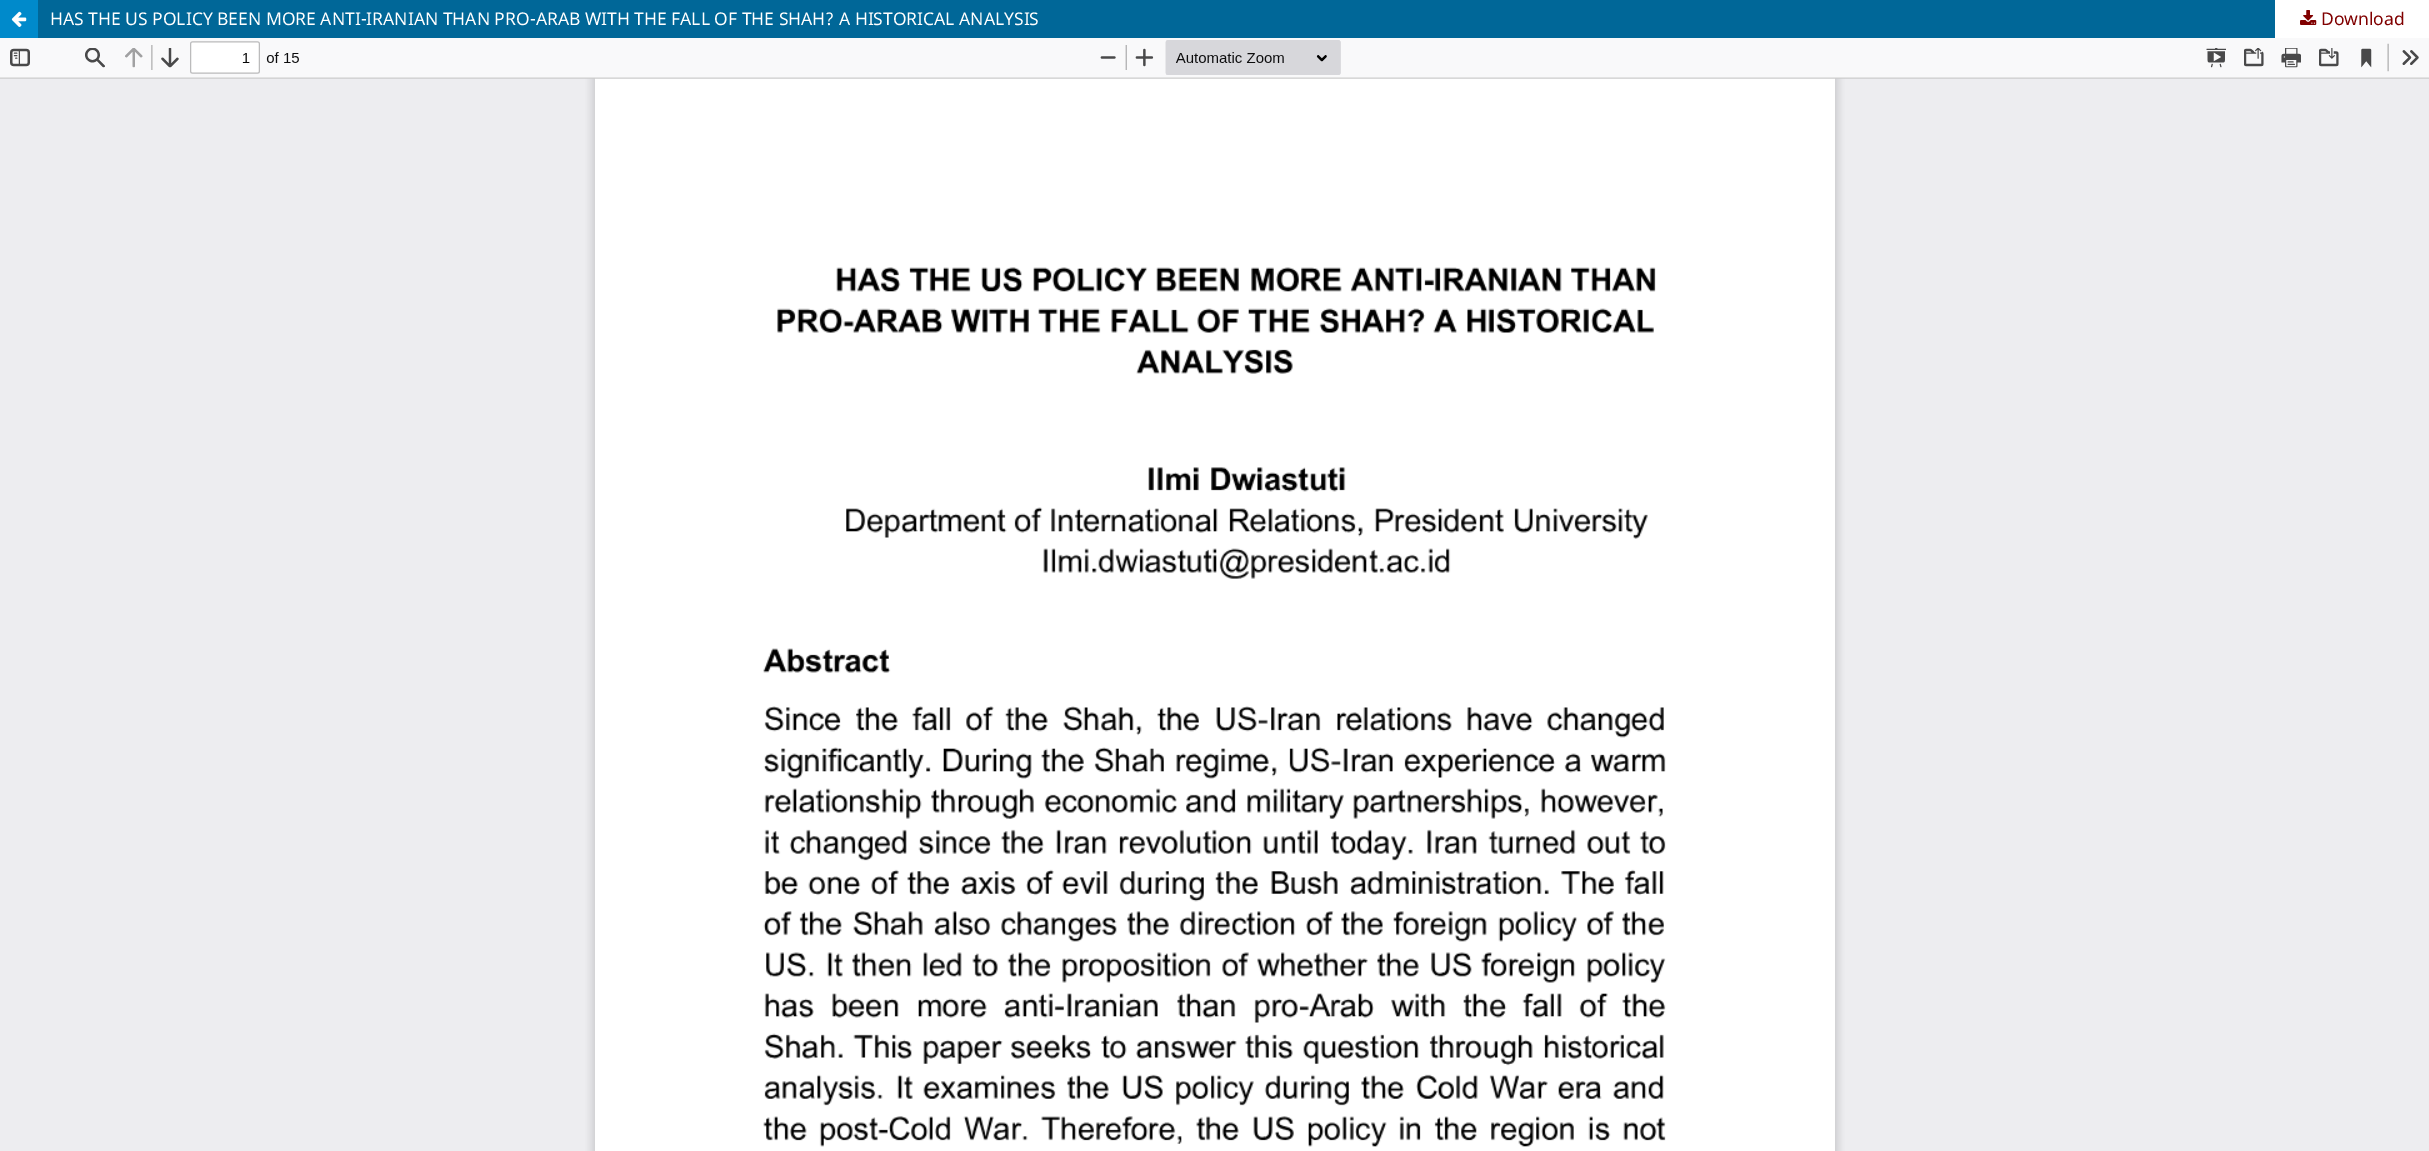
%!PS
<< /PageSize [2429 1151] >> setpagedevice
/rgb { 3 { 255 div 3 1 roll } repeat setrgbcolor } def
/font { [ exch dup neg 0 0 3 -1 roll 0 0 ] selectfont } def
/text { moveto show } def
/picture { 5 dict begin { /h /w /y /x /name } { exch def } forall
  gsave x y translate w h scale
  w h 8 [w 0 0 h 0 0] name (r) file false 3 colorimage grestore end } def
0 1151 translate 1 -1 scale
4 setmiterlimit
255 255 255 rgb
0 0 2429 1151 rectfill
0 103 152 rgb
38 0 2237 38 rectfill
0 138 203 rgb
0 0 38 38 rectfill
(img_01.rgb) 11 11 16 16 picture
(img_02.rgb) 2300 10 17 15 picture
(img_03.rgb) 0 38 2429 1113 picture
/NotoSans-Regular 17.5 font
255 255 255 rgb
(HAS THE US POLICY BEEN MORE ANTI-IRANIAN THAN PRO-ARAB WITH THE FALL OF THE SHAH? A HISTORICAL ANALYSIS) 50 25 text
128 0 0 rgb
(Download) 2321 25 text
showpage
